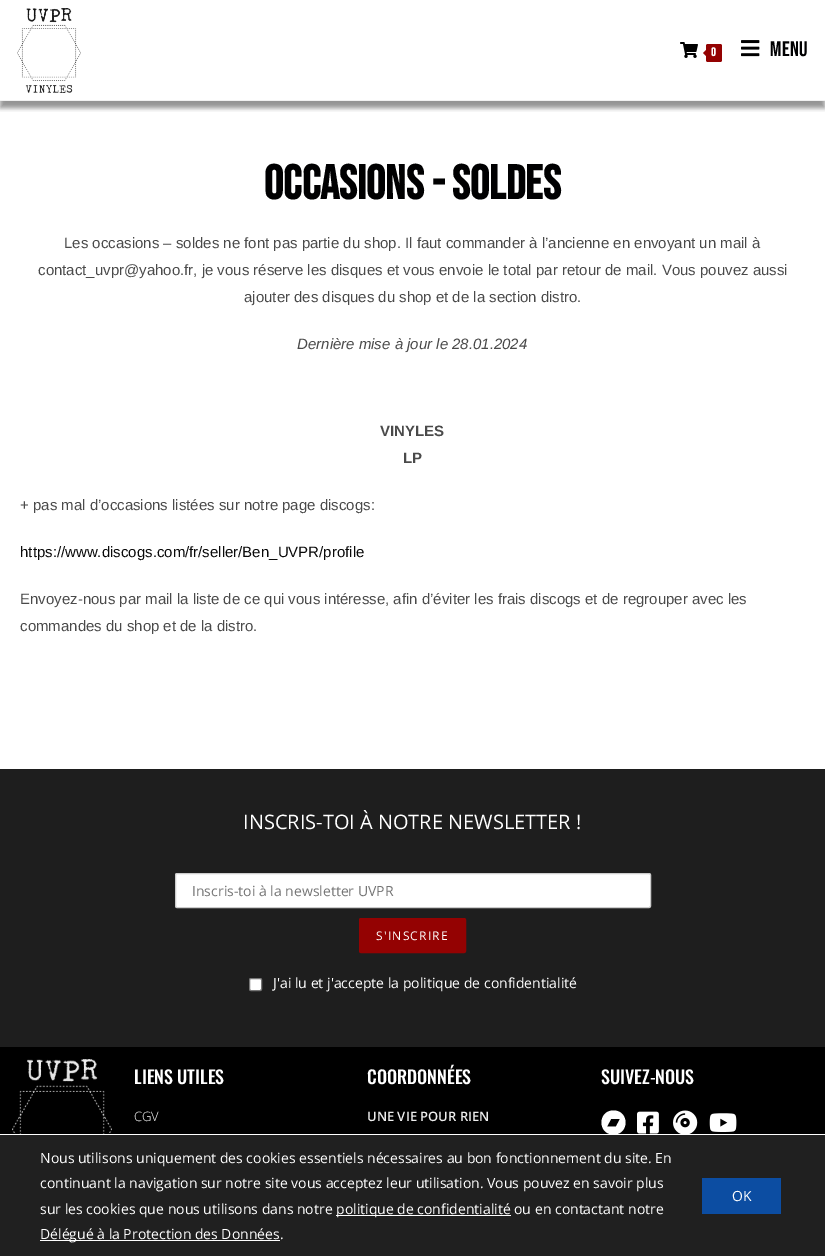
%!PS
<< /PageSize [825 1256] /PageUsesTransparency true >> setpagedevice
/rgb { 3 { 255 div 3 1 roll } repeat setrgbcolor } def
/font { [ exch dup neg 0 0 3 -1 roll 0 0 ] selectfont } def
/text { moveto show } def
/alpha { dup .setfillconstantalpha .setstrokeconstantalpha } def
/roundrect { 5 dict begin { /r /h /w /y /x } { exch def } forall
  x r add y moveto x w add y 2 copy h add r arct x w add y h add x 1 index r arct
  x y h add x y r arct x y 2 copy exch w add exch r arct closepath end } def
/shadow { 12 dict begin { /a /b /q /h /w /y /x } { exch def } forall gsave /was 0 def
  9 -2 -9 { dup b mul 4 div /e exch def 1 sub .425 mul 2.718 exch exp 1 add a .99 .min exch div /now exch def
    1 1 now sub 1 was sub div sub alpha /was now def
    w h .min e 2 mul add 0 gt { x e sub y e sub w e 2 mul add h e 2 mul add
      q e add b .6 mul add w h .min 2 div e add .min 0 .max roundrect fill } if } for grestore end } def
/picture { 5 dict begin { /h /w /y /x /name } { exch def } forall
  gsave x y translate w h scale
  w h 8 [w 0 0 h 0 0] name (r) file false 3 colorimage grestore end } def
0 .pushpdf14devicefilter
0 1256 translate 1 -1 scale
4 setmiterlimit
255 255 255 rgb
0 0 825 1256 rectfill
gsave
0 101 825 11 rectclip
39 39 39 rgb
0 7 825 101 0 2.5 0.5 shadow
grestore
241 241 241 rgb
0 100 825 1 rectfill
(img_01.rgb) 17 8 64 85 picture
(img_02.rgb) 680 42 18 16 picture
148 2 2 rgb
706 44 16 18 2 roundrect fill
708 48 moveto 0 10 rlineto -5 -5 rlineto closepath fill
(img_03.rgb) 741 40 19 17 picture
30 30 30 rgb
0 769 825 278 rectfill
255 255 255 rgb
175.5 873.5 475 34 1.5 roundrect gsave fill grestore
204 204 204 rgb
stroke
148 2 2 rgb
359.5 918.5 106 34 1.5 roundrect gsave fill grestore
stroke
255 255 255 rgb
249.5 978.5 12 12 1.5 roundrect gsave fill grestore
118 118 118 rgb
stroke
0 0 0 rgb
0 1047 825 87 rectfill
(img_04.rgb) 12 1059 100 75 picture
255 255 255 rgb
613.5 1110.5 moveto 16 0 16 24 0 24 rcurveto -16 0 -16 -24 0 -24 rcurveto closepath 616 1126.5 moveto 4 -7.5 rlineto -9 0 rlineto -4 7.5 rlineto closepath fill
(img_05.rgb) 637 1111 22 23 picture
(img_06.rgb) 673 1110 25 24 picture
(img_07.rgb) 709 1113 28 19 picture
32 32 32 rgb
0 1135 825 121 rectfill
255 255 255 rgb
336 1215 175 1 rectfill
40 1240 240 1 rectfill
12 77 162 rgb
702 1178 79 36 rectfill
/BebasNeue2-Bold 12 font
255 255 255 rgb
711 56 moveto 0.5 0 (0) ashow
/BebasNeue-Regular 21 font
0 0 1 rgb
770 56 moveto 0.5 0 (MENU) ashow
/BebasNeue-Bold 48 font
(Occasions - Soldes) 264 199 text
/LiberationSans-Regular 15 font
74 74 74 rgb
(Les occasions – soldes ne font pas partie du shop. Il faut commander à l’ancienne en envoyant un mail à) 64 248 text
(contact_uvpr@yahoo.fr, je vous réserve les disques et vous envoie le total par retour de mail. Vous pouvez aussi) 38 275 text
(ajouter des disques du shop et de la section distro.) 244 302 text
/LiberationSans-Italic 15 font
(Dernière mise à jour le 28.01.2024) 297 349 text
/LiberationSans-Bold 15 font
(VINYLES) 380 436 text
(LP) 403 463 text
/LiberationSans-Regular 15 font
(+ pas mal d’occasions listées sur notre page discogs:) 20 510 text
10 10 10 rgb
(https://www.discogs.com/fr/seller/Ben_UVPR/profile) 20 557 text
74 74 74 rgb
(Envoyez-nous par mail la liste de ce qui vous intéresse, afin d’éviter les frais discogs et de regrouper avec les) 20 604 text
(commandes du shop et de la distro.) 20 631 text
/OpenSans-Regular 20 font
255 255 255 rgb
(INSCRIS-TOI À NOTRE NEWSLETTER !) 243 829 text
/OpenSans-Regular 14 font
117 117 117 rgb
(Inscris-toi à la newsletter UVPR) 192 896 text
/OpenSans-Regular 12 font
255 255 255 rgb
376 940 moveto 1.25 0 (S'INSCRIRE) ashow
/OpenSans-Regular 14 font
(J'ai lu et j'accepte la politique de confidentialité) 273 988 text
/Oswald-Medium 18 font
(LIENS UTILES) 134 1084 text
/OpenSans-Light 13 font
(CGV) 134 1121 text
/Oswald-Medium 18 font
(COORDONNÉES) 367 1084 text
/OpenSans-SemiBold 13 font
237 237 237 rgb
(UNE VIE POUR RIEN) 367 1121 text
/Oswald-Medium 18 font
255 255 255 rgb
(SUIVEZ-NOUS) 601 1084 text
/OpenSans-Regular 14 font
(Nous utilisons uniquement des cookies essentiels nécessaires au bon fonctionnement du site. En) 40 1163 text
(continuant la navigation sur notre site vous acceptez leur utilisation. Vous pouvez en savoir plus) 40 1188 text
(sur les cookies que nous utilisons dans notre) 40 1214 text
(politique de confidentialité ou en contactant notre) 336 1214 text
(Délégué à la Protection des Données.) 40 1239 text
(OK) 732 1201 text
.poppdf14devicefilter showpage
